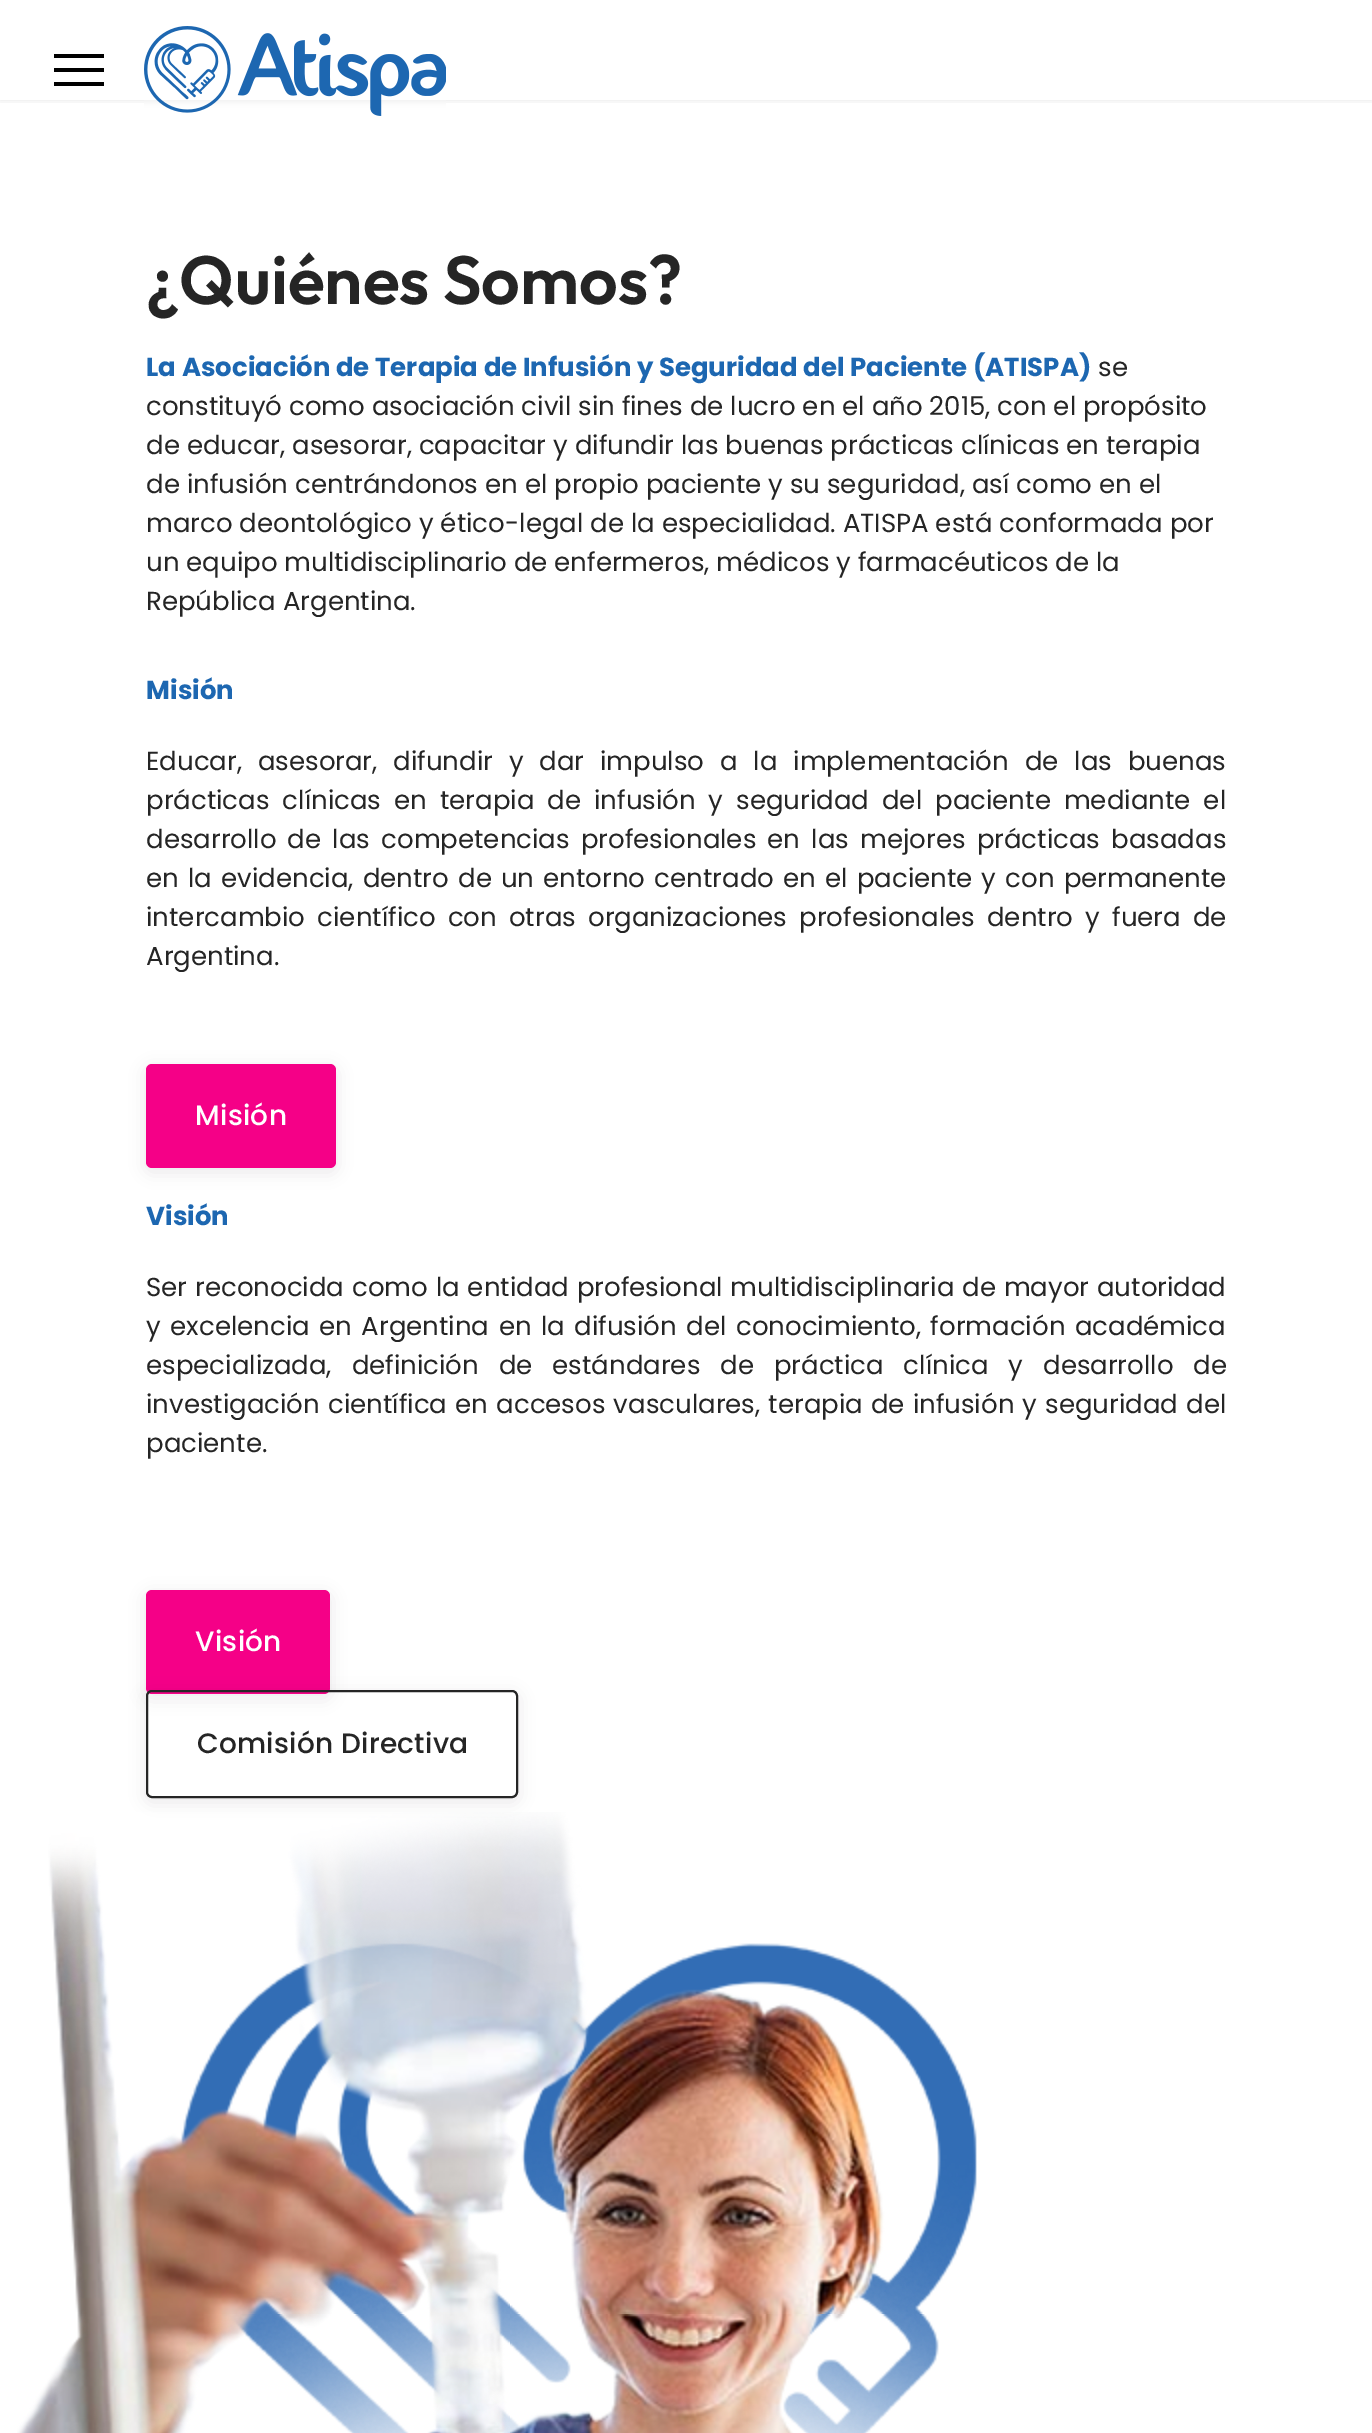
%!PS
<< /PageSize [1372 2433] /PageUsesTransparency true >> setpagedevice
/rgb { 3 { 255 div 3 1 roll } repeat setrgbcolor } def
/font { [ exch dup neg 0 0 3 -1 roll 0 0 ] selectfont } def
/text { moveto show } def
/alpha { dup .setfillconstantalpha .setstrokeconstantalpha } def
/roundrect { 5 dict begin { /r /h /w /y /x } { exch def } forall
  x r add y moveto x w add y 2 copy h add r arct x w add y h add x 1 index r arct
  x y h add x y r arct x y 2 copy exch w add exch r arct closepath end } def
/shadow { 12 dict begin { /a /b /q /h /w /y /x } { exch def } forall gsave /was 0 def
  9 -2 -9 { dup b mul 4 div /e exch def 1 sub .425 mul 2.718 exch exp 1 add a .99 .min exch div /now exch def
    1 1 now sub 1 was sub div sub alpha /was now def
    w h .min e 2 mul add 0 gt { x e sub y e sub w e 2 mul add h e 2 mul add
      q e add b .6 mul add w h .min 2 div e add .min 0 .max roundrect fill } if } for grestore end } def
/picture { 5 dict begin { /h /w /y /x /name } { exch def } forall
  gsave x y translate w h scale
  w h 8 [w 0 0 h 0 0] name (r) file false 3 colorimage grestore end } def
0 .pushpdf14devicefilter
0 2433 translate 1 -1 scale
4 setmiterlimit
255 255 255 rgb
0 0 1372 2433 rectfill
gsave
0 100 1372 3 rectclip
0 0 0 rgb
0 0 1372 100 0 4 0.1 shadow
grestore
0 0 0 rgb
54 54 50 4 rectfill
54 68 50 4 rectfill
54 82 50 4 rectfill
(img_01.rgb) 144 26 302 90 picture
28 26 32 rgb
146 1068 190 104 6 8 0.1 shadow
245 0 135 rgb
146 1064 190 104 6 roundrect fill
28 26 32 rgb
146 1594 184 104 6 8 0.1 shadow
245 0 135 rgb
146 1590 184 104 6 roundrect fill
gsave
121 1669 moveto 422 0 rlineto 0 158 rlineto -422 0 rlineto closepath 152 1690 moveto 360 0 rlineto 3.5 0 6 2.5 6 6 rcurveto 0 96 rlineto 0 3.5 -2.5 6 -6 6 rcurveto -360 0 rlineto -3.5 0 -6 -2.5 -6 -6 rcurveto 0 -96 rlineto 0 -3.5 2.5 -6 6 -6 rcurveto closepath eoclip newpath
28 26 32 rgb
146 1694 372 108 6 8 0.1 shadow
grestore
37 37 37 rgb
2 setlinewidth
147 1691 370 106 5 roundrect stroke
(img_02.rgb) 17 1812 960 621 picture
/Outfit-SemiBold 68 font
(¿Quiénes Somos?) 146 304 text
/Poppins-Bold 26 font
29 103 177 rgb
(La Asociación de Terapia de Infusión y Seguridad del Paciente \(ATISPA\)) 146 376 text
/Poppins-Regular 26 font
37 37 37 rgb
(se) 1098 376 text
(constituyó como asociación civil sin fines de lucro en el año 2015, con el propósito) 146 415 text
(de educar, asesorar, capacitar y difundir las buenas prácticas clínicas en terapia) 146 454 text
(de infusión centrándonos en el propio paciente y su seguridad, así como en el) 146 493 text
(marco deontológico y ético-legal de la especialidad. ATISPA está conformada por) 146 532 text
(un equipo multidisciplinario de enfermeros, médicos y farmacéuticos de la) 146 571 text
(República Argentina.) 146 610 text
/Poppins-Bold 26 font
29 103 177 rgb
(Misión) 146 699 text
/Poppins-Regular 26 font
37 37 37 rgb
146 770 moveto 9 0 32 (Educar, asesorar, difundir y dar impulso a la implementación de las buenas) widthshow
146 809 moveto 6.1 0 32 (prácticas clínicas en terapia de infusión y seguridad del paciente mediante el) widthshow
146 848 moveto 4.25 0 32 (desarrollo de las competencias profesionales en las mejores prácticas basadas) widthshow
146 887 moveto 2.25 0 32 (en la evidencia, dentro de un entorno centrado en el paciente y con permanente) widthshow
146 926 moveto 5.25 0 32 (intercambio científico con otras organizaciones profesionales dentro y fuera de) widthshow
(Argentina.) 146 965 text
/Poppins-Medium 28 font
255 255 255 rgb
195 1125 moveto 0.25 0 (Misión) ashow
/Poppins-Bold 26 font
29 103 177 rgb
(Visión) 146 1225 text
/Poppins-Regular 26 font
37 37 37 rgb
146 1296 moveto 1 0 32 (Ser reconocida como la entidad profesional multidisciplinaria de mayor autoridad) widthshow
146 1335 moveto 2.6 0 32 (y excelencia en Argentina en la difusión del conocimiento, formación académica) widthshow
146 1374 moveto 13 0 32 (especializada, definición de estándares de práctica clínica y desarrollo de) widthshow
146 1413 moveto 1.25 0 32 (investigación científica en accesos vasculares, terapia de infusión y seguridad del) widthshow
(paciente.) 146 1452 text
/Poppins-Medium 28 font
255 255 255 rgb
195 1651 moveto 0.25 0 (Visión) ashow
37 37 37 rgb
197 1753 moveto 0.25 0 (Comisión Directiva) ashow
.poppdf14devicefilter showpage
